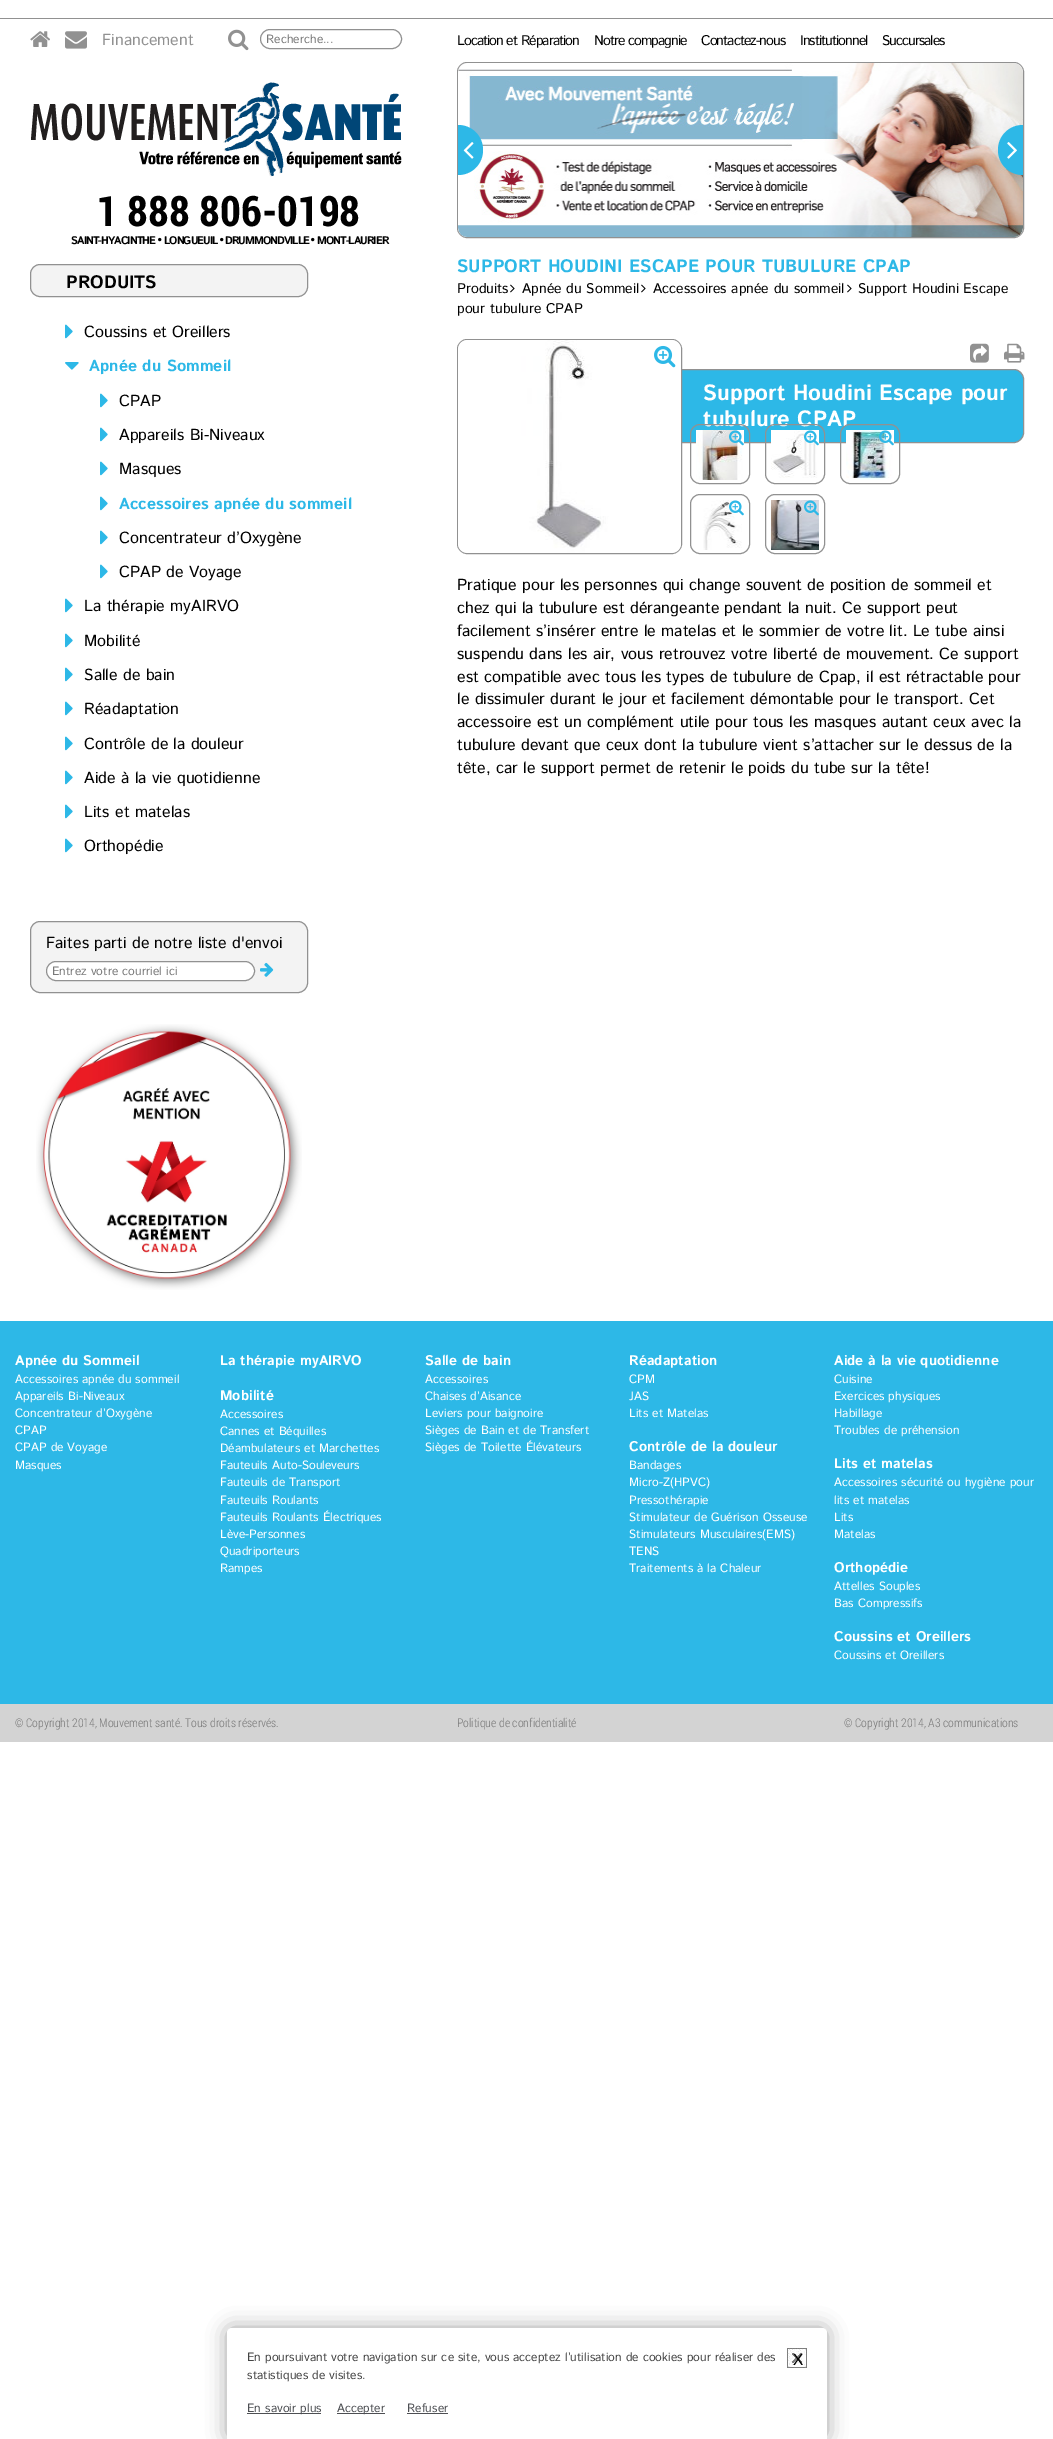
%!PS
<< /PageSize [1053 2439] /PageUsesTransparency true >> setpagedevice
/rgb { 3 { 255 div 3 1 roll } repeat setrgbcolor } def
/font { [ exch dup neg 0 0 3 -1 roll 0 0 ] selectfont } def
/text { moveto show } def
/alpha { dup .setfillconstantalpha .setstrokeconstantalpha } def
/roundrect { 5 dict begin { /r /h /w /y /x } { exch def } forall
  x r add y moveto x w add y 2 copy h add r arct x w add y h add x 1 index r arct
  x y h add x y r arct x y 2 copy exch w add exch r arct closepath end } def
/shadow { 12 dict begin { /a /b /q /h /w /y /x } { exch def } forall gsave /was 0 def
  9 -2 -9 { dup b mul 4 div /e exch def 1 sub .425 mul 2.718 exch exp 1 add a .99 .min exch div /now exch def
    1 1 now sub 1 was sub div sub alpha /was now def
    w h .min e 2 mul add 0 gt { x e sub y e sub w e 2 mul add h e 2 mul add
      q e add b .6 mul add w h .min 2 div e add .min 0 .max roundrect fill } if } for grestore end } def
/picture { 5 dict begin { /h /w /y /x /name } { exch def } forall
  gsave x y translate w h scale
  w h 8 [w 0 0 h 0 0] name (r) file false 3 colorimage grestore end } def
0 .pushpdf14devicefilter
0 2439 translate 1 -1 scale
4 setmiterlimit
255 255 255 rgb
0 0 1053 2439 rectfill
145 145 145 rgb
0 18 1053 1 rectfill
(img_01.rgb) 30 31 20 16 picture
(img_02.rgb) 65 31 22 18 picture
(img_03.rgb) 228 29 21 22 picture
260.5 29.5 141 19 9.5 roundrect stroke
(img_04.rgb) 31 82 371 95 picture
(img_05.rgb) 158 237 4 5 picture
(img_05.rgb) 220 237 4 5 picture
(img_05.rgb) 311 237 4 5 picture
243 243 243 rgb
30.5 264.5 277 32 9.5 roundrect gsave fill grestore
145 145 145 rgb
stroke
(img_06.rgb) 65 324 8 15 picture
(img_07.rgb) 65 362 14 8 picture
(img_06.rgb) 100 393 8 15 picture
(img_06.rgb) 100 427 8 15 picture
(img_06.rgb) 100 461 8 15 picture
(img_06.rgb) 100 496 8 15 picture
(img_06.rgb) 100 530 8 15 picture
(img_06.rgb) 100 564 8 15 picture
(img_06.rgb) 65 598 8 15 picture
(img_06.rgb) 65 633 8 15 picture
(img_06.rgb) 65 667 8 15 picture
(img_06.rgb) 65 701 8 15 picture
(img_06.rgb) 65 736 8 15 picture
(img_06.rgb) 65 770 8 15 picture
(img_06.rgb) 65 804 8 15 picture
(img_06.rgb) 65 838 8 15 picture
243 243 243 rgb
30.5 921.5 277 71 9.5 roundrect gsave fill grestore
145 145 145 rgb
stroke
255 255 255 rgb
46.5 961.5 208 19 9.5 roundrect gsave fill grestore
145 145 145 rgb
stroke
(img_08.rgb) 260 962 14 15 picture
(img_09.rgb) 36 1024 266 266 picture
243 243 243 rgb
457.5 62.5 566 175 9.5 roundrect gsave fill grestore
145 145 145 rgb
stroke
(img_10.rgb) 458 63 565 174 picture
45 184 231 rgb
458 125 moveto 14 0 25 11 25 25 rcurveto 0 14 -11 25 -25 25 rcurveto closepath fill
(img_11.rgb) 463 142 11 17 picture
1023 125 moveto 0 50 rlineto -14 0 -25 -11 -25 -25 rcurveto 0 -14 11 -25 25 -25 rcurveto closepath fill
(img_12.rgb) 1007 142 10 17 picture
(img_13.rgb) 510 284 5 9 picture
(img_13.rgb) 641 284 5 9 picture
(img_13.rgb) 847 284 5 9 picture
457.5 369.5 moveto 556.5 0 rlineto 5 0 9.5 4.5 9.5 9.5 rcurveto 0 54 rlineto 0 5 -4.5 9.5 -9.5 9.5 rcurveto -556.5 0 rlineto closepath gsave fill grestore
145 145 145 rgb
stroke
255 255 255 rgb
457.5 339.5 224 214 9.5 roundrect gsave fill grestore
145 145 145 rgb
stroke
(img_14.rgb) 458 340 223 213 picture
(img_15.rgb) 654 345 22 23 picture
(img_16.rgb) 970 343 19 20 picture
(img_17.rgb) 1004 343 21 20 picture
690.5 494.5 59 59 9.5 roundrect stroke
(img_24.rgb) 703 500 39 50 picture
(img_25.rgb) 729 500 15 16 picture
765.5 494.5 59 59 9.5 roundrect stroke
(img_26.rgb) 771 500 48 50 picture
(img_27.rgb) 804 500 15 16 picture
45 184 231 rgb
0 1321 1053 383 rectfill
211 211 211 rgb
0 1704 1053 38 rectfill
161 161 161 rgb
227 2328 600 111 5 10 1 shadow
255 255 255 rgb
232 2328 moveto 590 0 rlineto 3 0 5 2 5 5 rcurveto 0 106 rlineto -600 0 rlineto 0 -106 rlineto 0 -3 2 -5 5 -5 rcurveto closepath fill
(img_28.rgb) 787 2348 20 20 picture
77 79 83 rgb
247 2413 74 1 rectfill
337 2413 48 1 rectfill
407 2413 41 1 rectfill
/IstokWeb-Regular 16 font
145 145 145 rgb
(Financement) 102 45 text
/IstokWeb-Regular 12 font
121 121 121 rgb
(Recherche...) 266 43 text
/IstokWeb-Regular 14 font
0 0 0 rgb
457 45 moveto -1 0 (Location et Réparation) ashow
594 45 moveto -1 0 (Notre compagnie) ashow
701 45 moveto -1 0 (Contactez-nous) ashow
800 45 moveto -1 0 (Institutionnel) ashow
882 45 moveto -1 0 (Succursales) ashow
/RobotoCondensed-Bold 42 font
(1 888 806-0198) 97 226 text
/IstokWeb-Bold 11 font
71 244 moveto -1 0 (SAINT-HYACINTHE) ashow
164 244 moveto -1 0 (LONGUEUIL) ashow
225 244 moveto -1 0 (DRUMMONDVILLE) ashow
317 244 moveto -1 0 (MONT-LAURIER) ashow
/IstokWeb-Bold 18 font
(PRODUITS) 66 288 text
/IstokWeb-Regular 16 font
(Coussins et Oreillers) 84 337 text
/IstokWeb-Bold 16 font
45 184 231 rgb
(Apnée du Sommeil) 89 371 text
/IstokWeb-Regular 16 font
0 0 0 rgb
(CPAP) 119 406 text
(Appareils Bi-Niveaux) 119 440 text
(Masques) 119 474 text
/IstokWeb-Bold 16 font
45 184 231 rgb
(Accessoires apnée du sommeil) 119 509 text
/IstokWeb-Regular 16 font
0 0 0 rgb
(Concentrateur d’Oxygène) 119 543 text
(CPAP de Voyage) 119 577 text
(La thérapie myAIRVO) 84 611 text
(Mobilité) 84 646 text
(Salle de bain) 84 680 text
(Réadaptation) 84 714 text
(Contrôle de la douleur) 84 749 text
(Aide à la vie quotidienne) 84 783 text
(Lits et matelas) 84 817 text
(Orthopédie) 84 851 text
(Faites parti de notre liste d'envoi) 46 948 text
/IstokWeb-Regular 12 font
121 121 121 rgb
(Entrez votre courriel ici) 52 975 text
/IstokWeb-Bold 18 font
45 184 231 rgb
(SUPPORT HOUDINI ESCAPE POUR TUBULURE CPAP) 457 272 text
/IstokWeb-Regular 14 font
0 0 0 rgb
(Produits) 457 293 text
(Apnée du Sommeil) 522 293 text
(Accessoires apnée du sommeil) 653 293 text
(Support Houdini Escape) 858 293 text
(pour tubulure CPAP) 457 313 text
/IstokWeb-Bold 22 font
255 255 255 rgb
(Support Houdini Escape pour) 703 400 text
(tubulure CPAP) 703 426 text
145 145 145 rgb
690.5 424.5 59 59 9.5 roundrect stroke
(img_18.rgb) 696 430 48 50 picture
(img_19.rgb) 729 430 15 16 picture
765.5 424.5 59 59 9.5 roundrect stroke
(img_20.rgb) 771 430 48 48 picture
(img_21.rgb) 804 430 15 16 picture
840.5 424.5 59 59 9.5 roundrect stroke
(img_22.rgb) 846 430 48 50 picture
(img_23.rgb) 879 430 15 16 picture
/IstokWeb-Regular 16 font
0 0 0 rgb
(Pratique pour les personnes qui change souvent de position de sommeil et) 457 590 text
(chez qui la tubulure est dérangeante pendant la nuit. Ce support peut) 457 613 text
(facilement s’insérer entre le matelas et le sommier de votre lit. Le tube ainsi) 457 636 text
(suspendu dans les air, vous retrouvez votre liberté de mouvement. Ce support) 457 659 text
(est compatible avec tous les types de tubulure de Cpap, il est rétractable pour) 457 682 text
(le dissimuler durant le jour et facilement démontable pour le transport. Cet) 457 704 text
(accessoire est un complément utile pour tous les masques autant ceux avec la) 457 727 text
(tubulure devant que ceux dont la tubulure vient s’attacher sur le dessus de la) 457 750 text
(tête, car le support permet de retenir le poids du tube sur la tête!) 457 773 text
/IstokWeb-Bold 14 font
255 255 255 rgb
(Apnée du Sommeil) 15 1365 text
/IstokWeb-Regular 12 font
(Accessoires apnée du sommeil) 15 1383 text
(Appareils Bi-Niveaux) 15 1400 text
(Concentrateur d’Oxygène) 15 1417 text
(CPAP) 15 1434 text
(CPAP de Voyage) 15 1451 text
(Masques) 15 1469 text
/IstokWeb-Bold 14 font
(La thérapie myAIRVO) 220 1365 text
(Mobilité) 220 1400 text
/IstokWeb-Regular 12 font
(Accessoires) 220 1418 text
(Cannes et Béquilles) 220 1435 text
(Déambulateurs et Marchettes) 220 1452 text
(Fauteuils Auto-Souleveurs) 220 1469 text
(Fauteuils de Transport) 220 1486 text
(Fauteuils Roulants) 220 1504 text
(Fauteuils Roulants Électriques) 220 1521 text
(Lève-Personnes) 220 1538 text
(Quadriporteurs) 220 1555 text
(Rampes) 220 1572 text
/IstokWeb-Bold 14 font
(Salle de bain) 425 1365 text
/IstokWeb-Regular 12 font
(Accessoires) 425 1383 text
(Chaises d’Aisance) 425 1400 text
(Leviers pour baignoire) 425 1417 text
(Sièges de Bain et de Transfert) 425 1434 text
(Sièges de Toilette Élévateurs) 425 1451 text
/IstokWeb-Bold 14 font
(Réadaptation) 629 1365 text
/IstokWeb-Regular 12 font
(CPM) 629 1383 text
(JAS) 629 1400 text
(Lits et Matelas) 629 1417 text
/IstokWeb-Bold 14 font
(Contrôle de la douleur) 629 1451 text
/IstokWeb-Regular 12 font
(Bandages) 629 1469 text
(Micro-Z\(HPVC\)) 629 1486 text
(Pressothérapie) 629 1504 text
(Stimulateur de Guérison Osseuse) 629 1521 text
(Stimulateurs Musculaires\(EMS\)) 629 1538 text
(TENS) 629 1555 text
(Traitements à la Chaleur) 629 1572 text
/IstokWeb-Bold 14 font
(Aide à la vie quotidienne) 834 1365 text
/IstokWeb-Regular 12 font
(Cuisine) 834 1383 text
(Exercices physiques) 834 1400 text
(Habillage) 834 1417 text
(Troubles de préhension) 834 1434 text
/IstokWeb-Bold 14 font
(Lits et matelas) 834 1468 text
/IstokWeb-Regular 12 font
(Accessoires sécurité ou hygiène pour) 834 1486 text
(lits et matelas) 834 1504 text
(Lits) 834 1521 text
(Matelas) 834 1538 text
/IstokWeb-Bold 14 font
(Orthopédie) 834 1572 text
/IstokWeb-Regular 12 font
(Attelles Souples) 834 1590 text
(Bas Compressifs) 834 1607 text
/IstokWeb-Bold 14 font
(Coussins et Oreillers) 834 1641 text
/IstokWeb-Regular 12 font
(Coussins et Oreillers) 834 1659 text
/RobotoCondensed-Light 12 font
121 121 121 rgb
(© Copyright 2014, Mouvement santé. Tous droits réservés.) 15 1727 text
(Politique de confidentialité) 457 1727 text
(© Copyright 2014, A3 communications) 844 1727 text
/IstokWeb-Regular 12 font
68 68 68 rgb
(En poursuivant votre navigation sur ce site, vous acceptez l’utilisation de cookies pour réaliser des) 247 2361 text
(statistiques de visites.) 247 2379 text
/IstokWeb-Regular 16 font
0 0 0 rgb
(X) 793 2365 text
/IstokWeb-Regular 12 font
77 79 83 rgb
(En savoir plus) 247 2412 text
(Accepter) 337 2412 text
(Refuser) 407 2412 text
.poppdf14devicefilter showpage
